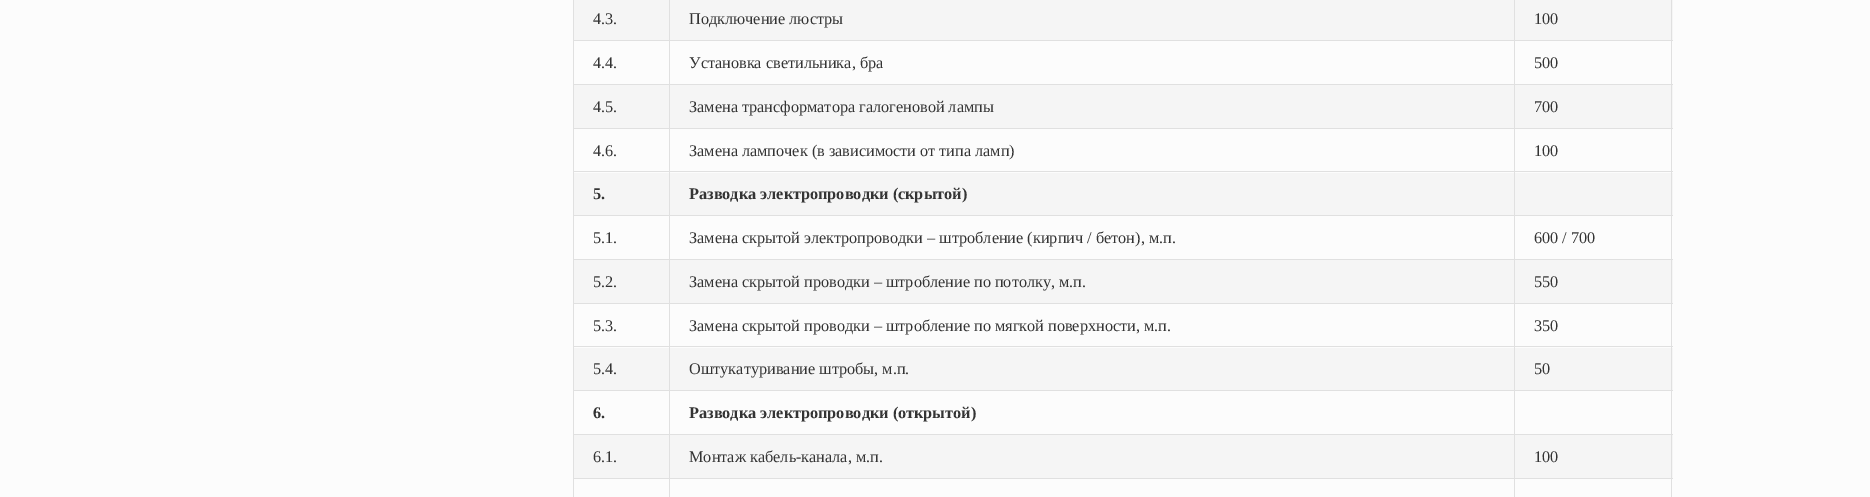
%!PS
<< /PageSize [1870 497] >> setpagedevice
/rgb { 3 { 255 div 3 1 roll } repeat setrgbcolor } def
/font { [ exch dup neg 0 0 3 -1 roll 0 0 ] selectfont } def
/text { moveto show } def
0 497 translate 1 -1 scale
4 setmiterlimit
252 252 252 rgb
0 0 1870 497 rectfill
245 245 245 rgb
1515 0 158 40 rectfill
1515 85 158 43 rectfill
1515 173 158 42 rectfill
1515 260 158 43 rectfill
1515 348 158 42 rectfill
1515 435 158 43 rectfill
224 224 224 rgb
1671 0 1 497 rectfill
573 0 1 497 rectfill
245 245 245 rgb
574 0 95 40 rectfill
670 0 844 40 rectfill
224 224 224 rgb
1514 40 159 1 rectfill
1514 84 159 1 rectfill
1514 128 159 1 rectfill
1514 171 159 1 rectfill
1514 215 159 1 rectfill
1514 259 159 1 rectfill
1514 303 159 1 rectfill
1514 346 159 1 rectfill
1514 390 159 1 rectfill
1514 434 159 1 rectfill
1514 478 159 1 rectfill
1514 478 1 19 rectfill
669 478 846 1 rectfill
1514 434 1 45 rectfill
669 434 846 1 rectfill
1514 390 1 45 rectfill
669 390 846 1 rectfill
1514 346 1 45 rectfill
669 346 846 1 rectfill
1514 303 1 45 rectfill
669 303 846 1 rectfill
1514 259 1 45 rectfill
669 259 846 1 rectfill
1514 215 1 45 rectfill
669 215 846 1 rectfill
1514 171 1 45 rectfill
669 171 846 1 rectfill
1514 128 1 45 rectfill
669 128 846 1 rectfill
1514 84 1 45 rectfill
669 84 846 1 rectfill
1514 40 1 45 rectfill
669 40 846 1 rectfill
669 478 1 19 rectfill
573 478 97 1 rectfill
669 434 1 45 rectfill
573 434 97 1 rectfill
669 390 1 45 rectfill
573 390 97 1 rectfill
669 346 1 45 rectfill
573 346 97 1 rectfill
669 303 1 45 rectfill
573 303 97 1 rectfill
669 259 1 45 rectfill
573 259 97 1 rectfill
669 215 1 45 rectfill
573 215 97 1 rectfill
669 171 1 45 rectfill
573 171 97 1 rectfill
669 128 1 45 rectfill
573 128 97 1 rectfill
669 84 1 45 rectfill
573 84 97 1 rectfill
669 40 1 45 rectfill
573 40 97 1 rectfill
669 0 1 41 rectfill
1514 0 1 41 rectfill
245 245 245 rgb
574 85 95 43 rectfill
670 85 844 43 rectfill
574 173 95 42 rectfill
670 173 844 42 rectfill
574 260 95 43 rectfill
670 260 844 43 rectfill
574 348 95 42 rectfill
670 348 844 42 rectfill
574 435 95 43 rectfill
670 435 844 43 rectfill
/LiberationSerif-Regular 16.25 font
52 52 52 rgb
(4.3.) 593 24 text
(Подключение люстры) 689 24 text
(100) 1534 24 text
(4.4.) 593 68 text
(Установка светильника, бра) 689 68 text
(500) 1534 68 text
(4.5.) 593 112 text
(Замена трансформатора галогеновой лампы) 689 112 text
(700) 1534 112 text
(4.6.) 593 156 text
(Замена лампочек \(в зависимости от типа ламп\)) 689 156 text
(100) 1534 156 text
/LiberationSerif-Bold 16.25 font
(5.) 593 199 text
(Разводка электропроводки \(скрытой\)) 689 199 text
/LiberationSerif-Regular 16.25 font
(5.1.) 593 243 text
(Замена скрытой электропроводки – штробление \(кирпич / бетон\), м.п.) 689 243 text
(600 / 700) 1534 243 text
(5.2.) 593 287 text
(Замена скрытой проводки – штробление по потолку, м.п.) 689 287 text
(550) 1534 287 text
(5.3.) 593 331 text
(Замена скрытой проводки – штробление по мягкой поверхности, м.п.) 689 331 text
(350) 1534 331 text
(5.4.) 593 374 text
(Оштукатуривание штробы, м.п.) 689 374 text
(50) 1534 374 text
/LiberationSerif-Bold 16.25 font
(6.) 593 418 text
(Разводка электропроводки \(открытой\)) 689 418 text
/LiberationSerif-Regular 16.25 font
(6.1.) 593 462 text
(Монтаж кабель-канала, м.п.) 689 462 text
(100) 1534 462 text
showpage
